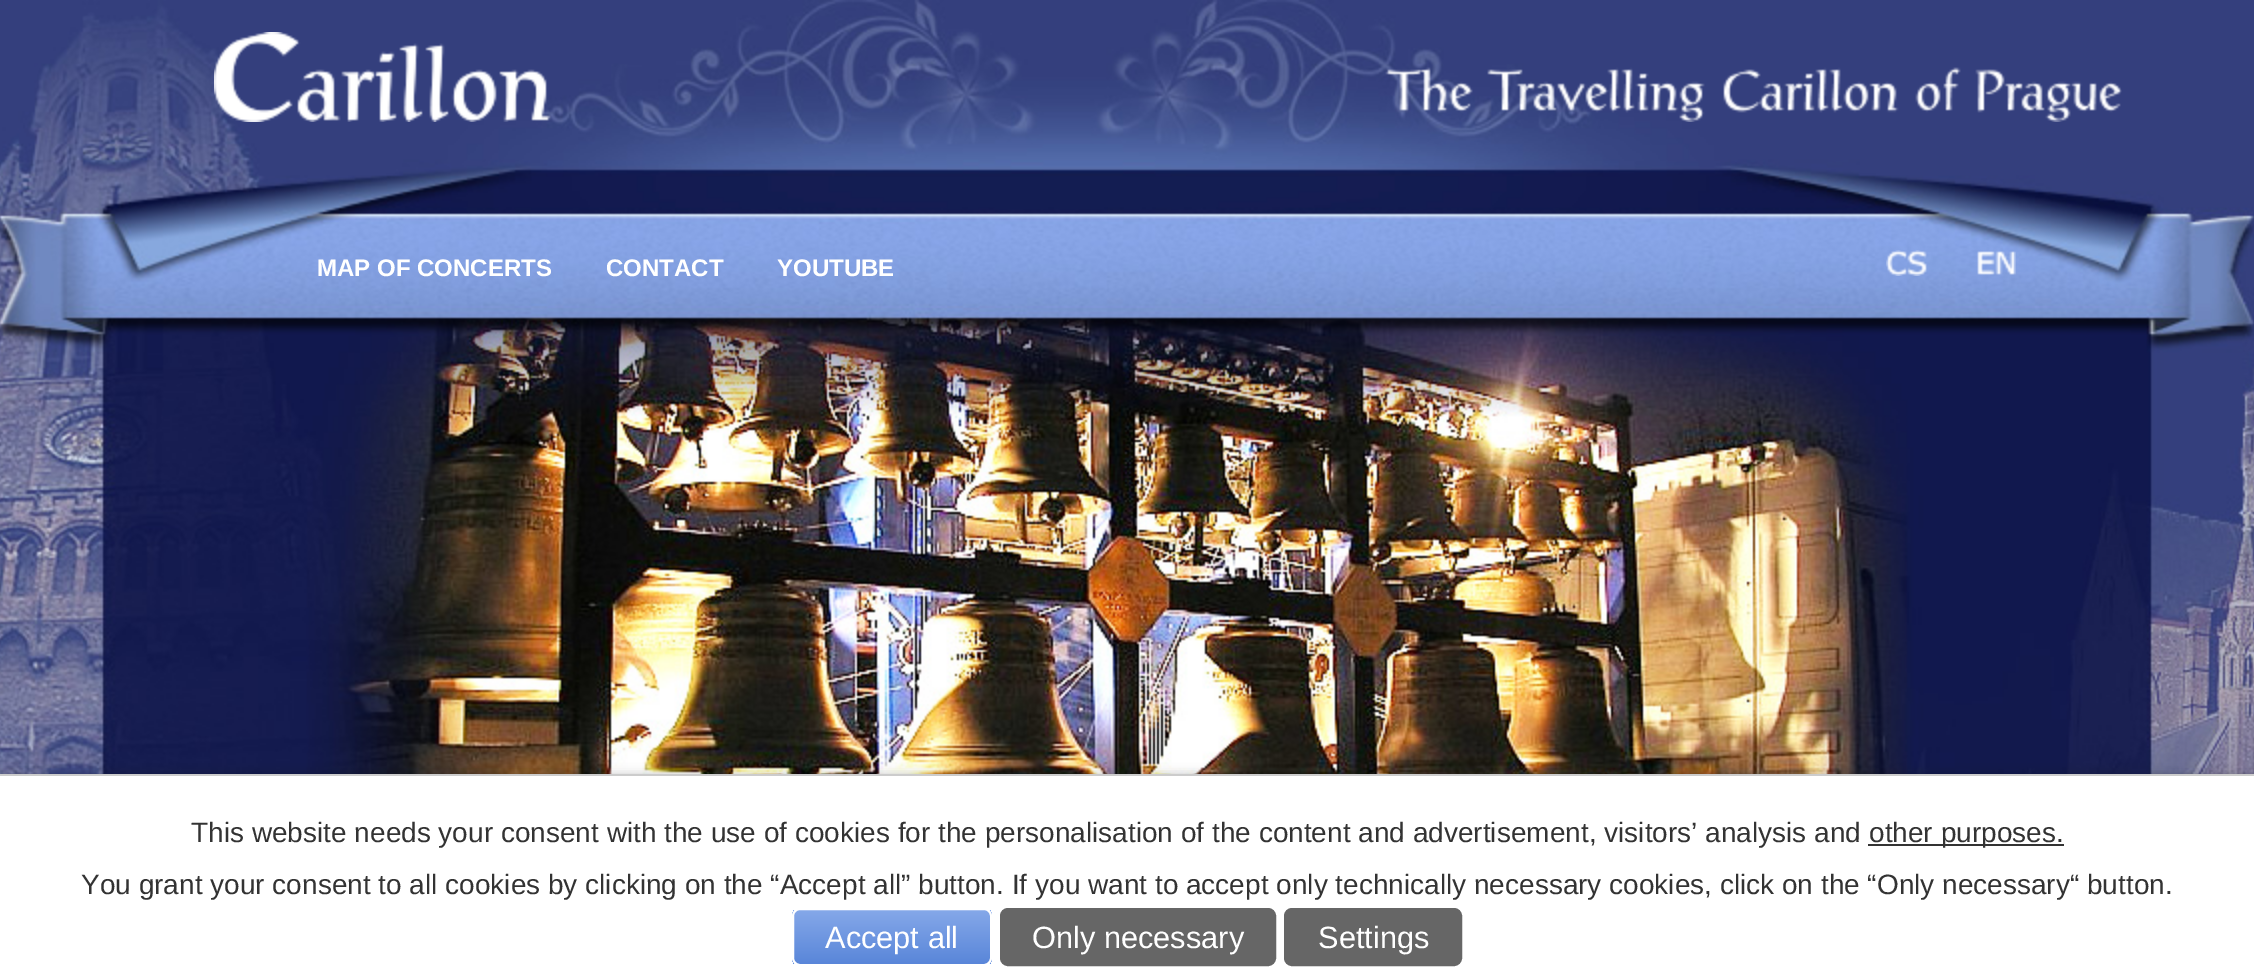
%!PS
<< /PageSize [2254 975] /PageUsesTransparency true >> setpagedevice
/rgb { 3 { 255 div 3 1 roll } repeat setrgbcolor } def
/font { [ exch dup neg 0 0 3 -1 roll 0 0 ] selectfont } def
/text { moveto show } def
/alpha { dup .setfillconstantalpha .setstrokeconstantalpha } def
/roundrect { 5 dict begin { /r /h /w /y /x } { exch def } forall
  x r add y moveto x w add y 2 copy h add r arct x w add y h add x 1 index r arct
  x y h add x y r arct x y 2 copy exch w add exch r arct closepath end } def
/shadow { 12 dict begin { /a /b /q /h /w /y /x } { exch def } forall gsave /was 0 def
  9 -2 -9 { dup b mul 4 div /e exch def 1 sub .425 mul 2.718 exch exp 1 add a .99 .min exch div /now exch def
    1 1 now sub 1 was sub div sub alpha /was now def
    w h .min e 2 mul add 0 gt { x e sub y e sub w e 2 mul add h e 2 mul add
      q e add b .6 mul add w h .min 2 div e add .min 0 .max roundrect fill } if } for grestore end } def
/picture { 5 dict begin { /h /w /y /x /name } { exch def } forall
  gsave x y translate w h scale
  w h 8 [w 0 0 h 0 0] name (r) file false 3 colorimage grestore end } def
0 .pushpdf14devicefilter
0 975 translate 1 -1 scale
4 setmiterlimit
255 255 255 rgb
0 0 2254 975 rectfill
(img_01.rgb) 0 0 2254 774 picture
(img_02.rgb) 214 32 1908 90 picture
(img_03.rgb) 1886 250 41 26 picture
(img_04.rgb) 1977 251 39 24 picture
0 0 0 rgb
0 774 2254 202 0 5 0.2 shadow
255 255 255 rgb
0 776 2254 199 rectfill
204 204 204 rgb
0 774 2254 2 rectfill
51 51 51 rgb
1868 844 196 2 rectfill
gsave
792 908 200 58 8 roundrect clip newpath
gsave 792 910 moveto 200 0 rlineto 0 54 rlineto -200 0 rlineto closepath clip newpath
<< /ShadingType 2 /ColorSpace /DeviceRGB /Coords [794 910 794 964] /Extend [true true] /Function << /FunctionType 2 /Domain [0 1] /C0 [0.522 0.659 0.914] /C1 [0.349 0.525 0.851] /N 1 >> >> shfill grestore
grestore
255 255 255 rgb
2 setlinewidth
793 909 198 56 7 roundrect stroke
102 102 102 rgb
1001 909 274 56 7 roundrect gsave fill grestore
stroke
1285 909 176 56 7 roundrect gsave fill grestore
stroke
/LiberationSans-Bold 24 font
255 255 255 rgb
(MAP OF CONCERTS) 317 276 text
(CONTACT) 606 276 text
(YOUTUBE) 777 276 text
/LiberationSans-Regular 28 font
51 51 51 rgb
(This website needs your consent with the use of cookies for the personalisation of the content and advertisement, visitors’ analysis and) 191 842 text
(other purposes.) 1869 842 text
(You grant your consent to all cookies by clicking on the “Accept all” button. If you want to accept only technically necessary cookies, click on the “Only necessary“ button.) 81 894 text
/LiberationSans-Regular 30.75 font
255 255 255 rgb
(Accept all) 825 948 text
(Only necessary) 1032 948 text
(Settings) 1318 948 text
.poppdf14devicefilter showpage
